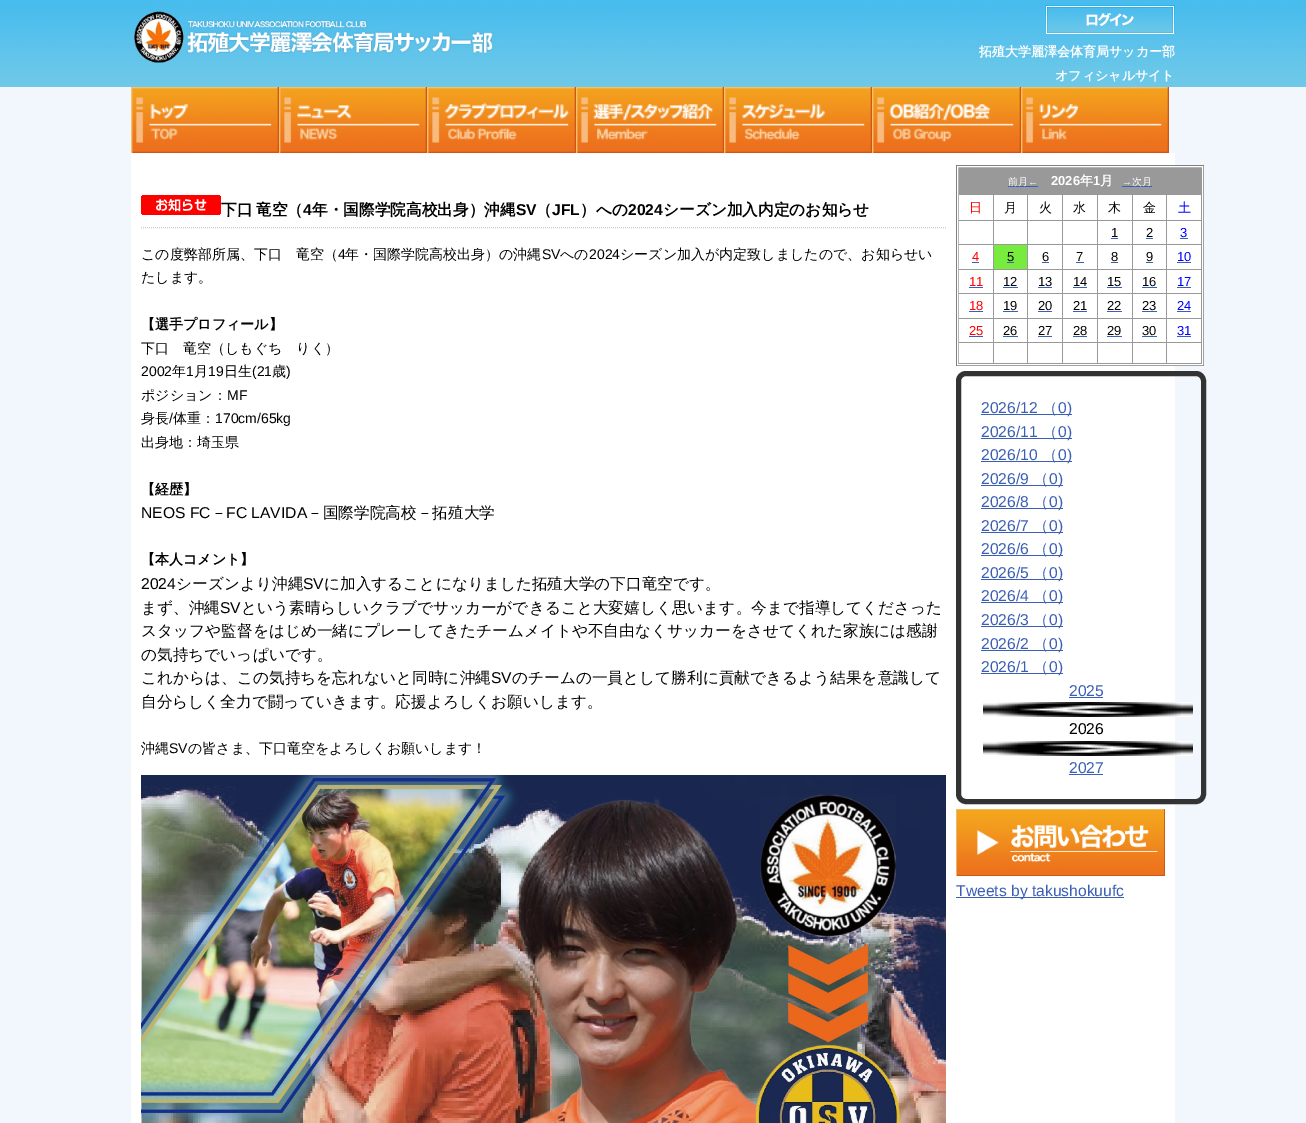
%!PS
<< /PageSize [1306 1123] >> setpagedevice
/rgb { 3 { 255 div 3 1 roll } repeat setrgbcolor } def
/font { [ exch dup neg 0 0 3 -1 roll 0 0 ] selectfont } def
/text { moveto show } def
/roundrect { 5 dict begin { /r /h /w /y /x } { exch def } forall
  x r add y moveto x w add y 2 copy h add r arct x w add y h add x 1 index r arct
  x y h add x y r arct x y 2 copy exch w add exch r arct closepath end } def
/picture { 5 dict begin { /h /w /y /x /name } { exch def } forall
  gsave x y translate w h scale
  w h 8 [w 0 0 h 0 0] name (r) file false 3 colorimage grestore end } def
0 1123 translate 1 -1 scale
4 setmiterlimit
242 247 253 rgb
0 0 1306 1123 rectfill
(img_01.rgb) 0 0 1306 87 picture
(img_02.rgb) 134 11 360 52 picture
(img_03.rgb) 1045 5 130 30 picture
(img_04.rgb) 131 87 148 66 picture
(img_05.rgb) 279 87 148 66 picture
(img_06.rgb) 427 87 149 66 picture
(img_07.rgb) 576 87 148 66 picture
(img_08.rgb) 724 87 148 66 picture
(img_09.rgb) 872 87 149 66 picture
(img_10.rgb) 1021 87 148 66 picture
255 255 255 rgb
131 153 1044 970 rectfill
204 204 204 rgb
[1 1] 0 setdash
141 227.5 moveto 805 0 rlineto stroke
(img_11.rgb) 141 195 80 20 picture
(img_12.rgb) 141 775 805 348 picture
128 128 128 rgb
956 165 248 1 rectfill
1203 165 1 201 rectfill
956 365 248 1 rectfill
956 165 1 201 rectfill
153 153 153 rgb
957.5 166.5 moveto 245 0 rlineto 0 198 rlineto -245 0 rlineto closepath gsave fill grestore
255 255 255 rgb
[] 0 setdash
stroke
59 95 181 rgb
1008 186 30 1 rectfill
1122 186 30 1 rectfill
255 255 255 rgb
959 195 34 25 rectfill
994 195 33 25 rectfill
1028 195 34 25 rectfill
1063 195 34 25 rectfill
1098 195 34 25 rectfill
1133 195 33 25 rectfill
1167 195 34 25 rectfill
959 221 34 23 rectfill
994 221 33 23 rectfill
1028 221 34 23 rectfill
1063 221 34 23 rectfill
1098 221 34 23 rectfill
59 95 181 rgb
1111 238 7 1 rectfill
255 255 255 rgb
1133 221 33 23 rectfill
59 95 181 rgb
1146 238 7 1 rectfill
255 255 255 rgb
1167 221 34 23 rectfill
59 95 181 rgb
1180 238 8 1 rectfill
255 255 255 rgb
959 245 34 24 rectfill
59 95 181 rgb
972 262 7 1 rectfill
119 235 62 rgb
994 245 33 24 rectfill
59 95 181 rgb
1007 262 7 1 rectfill
255 255 255 rgb
1028 245 34 24 rectfill
59 95 181 rgb
1042 262 7 1 rectfill
255 255 255 rgb
1063 245 34 24 rectfill
59 95 181 rgb
1076 262 8 1 rectfill
255 255 255 rgb
1098 245 34 24 rectfill
59 95 181 rgb
1111 262 7 1 rectfill
255 255 255 rgb
1133 245 33 24 rectfill
59 95 181 rgb
1146 262 7 1 rectfill
255 255 255 rgb
1167 245 34 24 rectfill
59 95 181 rgb
1177 262 14 1 rectfill
255 255 255 rgb
959 270 34 23 rectfill
59 95 181 rgb
969 287 14 1 rectfill
255 255 255 rgb
994 270 33 23 rectfill
59 95 181 rgb
1003 287 15 1 rectfill
255 255 255 rgb
1028 270 34 23 rectfill
59 95 181 rgb
1038 287 14 1 rectfill
255 255 255 rgb
1063 270 34 23 rectfill
59 95 181 rgb
1073 287 14 1 rectfill
255 255 255 rgb
1098 270 34 23 rectfill
59 95 181 rgb
1107 287 15 1 rectfill
255 255 255 rgb
1133 270 33 23 rectfill
59 95 181 rgb
1142 287 15 1 rectfill
255 255 255 rgb
1167 270 34 23 rectfill
59 95 181 rgb
1177 287 14 1 rectfill
255 255 255 rgb
959 294 34 24 rectfill
59 95 181 rgb
969 311 14 1 rectfill
255 255 255 rgb
994 294 33 24 rectfill
59 95 181 rgb
1003 311 15 1 rectfill
255 255 255 rgb
1028 294 34 24 rectfill
59 95 181 rgb
1038 311 14 1 rectfill
255 255 255 rgb
1063 294 34 24 rectfill
59 95 181 rgb
1073 311 14 1 rectfill
255 255 255 rgb
1098 294 34 24 rectfill
59 95 181 rgb
1107 311 15 1 rectfill
255 255 255 rgb
1133 294 33 24 rectfill
59 95 181 rgb
1142 311 15 1 rectfill
255 255 255 rgb
1167 294 34 24 rectfill
59 95 181 rgb
1177 311 14 1 rectfill
255 255 255 rgb
959 319 34 23 rectfill
59 95 181 rgb
969 336 14 1 rectfill
255 255 255 rgb
994 319 33 23 rectfill
59 95 181 rgb
1003 336 15 1 rectfill
255 255 255 rgb
1028 319 34 23 rectfill
59 95 181 rgb
1038 336 14 1 rectfill
255 255 255 rgb
1063 319 34 23 rectfill
59 95 181 rgb
1073 336 14 1 rectfill
255 255 255 rgb
1098 319 34 23 rectfill
59 95 181 rgb
1107 336 15 1 rectfill
255 255 255 rgb
1133 319 33 23 rectfill
59 95 181 rgb
1142 336 15 1 rectfill
255 255 255 rgb
1167 319 34 23 rectfill
59 95 181 rgb
1177 336 14 1 rectfill
255 255 255 rgb
959 343 34 20 rectfill
994 343 33 20 rectfill
1028 343 34 20 rectfill
1063 343 34 20 rectfill
1098 343 34 20 rectfill
1133 343 33 20 rectfill
1167 343 34 20 rectfill
51 51 51 rgb
5 setlinewidth
958.5 373.5 245 428 7.5 roundrect stroke
59 95 181 rgb
981 414 91 1 rectfill
981 438 91 1 rectfill
981 461 91 1 rectfill
981 485 82 1 rectfill
981 508 82 1 rectfill
981 532 82 1 rectfill
981 555 82 1 rectfill
981 579 82 1 rectfill
981 602 82 1 rectfill
981 626 82 1 rectfill
981 650 82 1 rectfill
981 673 82 1 rectfill
1069 697 34 1 rectfill
(img_13.rgb) 983 702 210 15 picture
(img_14.rgb) 983 741 210 15 picture
1069 774 34 1 rectfill
(img_15.rgb) 956 809 209 67 picture
956 897 168 1 rectfill
/WenQuanYiZenHei-Bold 13 font
255 255 255 rgb
(拓殖大学麗澤会体育局サッカー部) 979 56 text
(オフィシャルサイト) 1055 80 text
/WenQuanYiZenHei-Bold 15.67 font
0 0 0 rgb
221 215 moveto -1 0 32 (下口 竜空（) widthshow
/LiberationSans-Bold 15.67 font
(4) 303 215 text
/WenQuanYiZenHei-Bold 15.67 font
(年・国際学院高校出身）沖縄) 312 215 text
/LiberationSans-Bold 15.67 font
(SV) 516 215 text
/WenQuanYiZenHei-Bold 15.67 font
(（) 536 215 text
/LiberationSans-Bold 15.67 font
(JFL) 552 215 text
/WenQuanYiZenHei-Bold 15.67 font
(）への) 580 215 text
/LiberationSans-Bold 15.67 font
(2024) 628 215 text
/WenQuanYiZenHei-Bold 15.67 font
(シーズン加入内定のお知らせ) 663 215 text
/WenQuanYiZenHei-Medium 14 font
(この度弊部所属、下口　竜空（) 141 259 text
/LiberationSans-Regular 14 font
(4) 338 259 text
/WenQuanYiZenHei-Medium 14 font
(年・国際学院高校出身）の沖縄) 345 259 text
/LiberationSans-Regular 14 font
(SV) 542 259 text
/WenQuanYiZenHei-Medium 14 font
(への) 560 259 text
/LiberationSans-Regular 14 font
(2024) 589 259 text
/WenQuanYiZenHei-Medium 14 font
(シーズン加入が内定致しましたので、お知らせい) 620 259 text
(たします。) 141 282 text
/WenQuanYiZenHei-Bold 14 font
(【選手プロフィール】) 141 329 text
/WenQuanYiZenHei-Medium 14 font
(下口　竜空（しもぐち　りく）) 141 353 text
/LiberationSans-Regular 14 font
(2002) 141 376 text
/WenQuanYiZenHei-Medium 14 font
(年) 172 376 text
/LiberationSans-Regular 14 font
(1) 186 376 text
/WenQuanYiZenHei-Medium 14 font
(月) 194 376 text
/LiberationSans-Regular 14 font
(19) 208 376 text
/WenQuanYiZenHei-Medium 14 font
(日生) 224 376 text
/LiberationSans-Regular 14 font
(\(21) 252 376 text
/WenQuanYiZenHei-Medium 14 font
(歳) 272 376 text
/LiberationSans-Regular 14 font
(\)) 286 376 text
/WenQuanYiZenHei-Medium 14 font
(ポジション：) 141 400 text
/LiberationSans-Regular 14 font
(MF) 227 400 text
/WenQuanYiZenHei-Medium 14 font
(身長) 141 423 text
/LiberationSans-Regular 14 font
(/) 169 423 text
/WenQuanYiZenHei-Medium 14 font
(体重：) 173 423 text
/LiberationSans-Regular 14 font
(170cm/65kg) 215 423 text
/WenQuanYiZenHei-Medium 14 font
(出身地：埼玉県) 141 447 text
/WenQuanYiZenHei-Bold 14 font
(【経歴】) 141 494 text
/LiberationSans-Regular 15.67 font
(NEOS FC) 141 518 text
/WenQuanYiZenHei-Medium 15.67 font
(－) 211 518 text
/LiberationSans-Regular 15.67 font
(FC LAVIDA) 226 518 text
/WenQuanYiZenHei-Medium 15.67 font
(－国際学院高校－拓殖大学) 307 518 text
/WenQuanYiZenHei-Bold 14 font
(【本人コメント】) 141 564 text
/LiberationSans-Regular 15.67 font
(2024) 141 589 text
/WenQuanYiZenHei-Medium 15.67 font
(シーズンより沖縄) 176 589 text
/LiberationSans-Regular 15.67 font
(SV) 303 589 text
/WenQuanYiZenHei-Medium 15.67 font
(に加入することになりました拓殖大学の下口竜空です。) 324 589 text
(まず、沖縄) 141 613 text
/LiberationSans-Regular 15.67 font
(SV) 220 613 text
/WenQuanYiZenHei-Medium 15.67 font
(という素晴らしいクラブでサッカーができること大変嬉しく思います。今まで指導してくださった) 241 613 text
(スタッフや監督をはじめ一緒にプレーしてきたチームメイトや不自由なくサッカーをさせてくれた家族には感謝) 141 636 text
(の気持ちでいっぱいです。) 141 660 text
(これからは、この気持ちを忘れないと同時に沖縄) 141 683 text
/LiberationSans-Regular 15.67 font
(SV) 491 683 text
/WenQuanYiZenHei-Medium 15.67 font
(のチームの一員として勝利に貢献できるよう結果を意識して) 512 683 text
(自分らしく全力で闘っていきます。応援よろしくお願いします。) 141 707 text
/WenQuanYiZenHei-Medium 14 font
(沖縄) 141 753 text
/LiberationSans-Regular 14 font
(SV) 169 753 text
/WenQuanYiZenHei-Medium 14 font
(の皆さま、下口竜空をよろしくお願いします！) 188 753 text
/WenQuanYiZenHei-Medium 10 font
255 255 255 rgb
(前月) 1008 185 text
/LiberationSans-Regular 10 font
(←) 1028 185 text
/LiberationSans-Bold 13 font
(2026) 1051 185 text
/WenQuanYiZenHei-Bold 13 font
(年) 1080 185 text
/LiberationSans-Bold 13 font
(1) 1093 185 text
/WenQuanYiZenHei-Bold 13 font
(月) 1100 185 text
/LiberationSans-Regular 10 font
(→) 1122 185 text
/WenQuanYiZenHei-Medium 10 font
(次月) 1132 185 text
/WenQuanYiZenHei-Medium 13 font
255 0 0 rgb
(日) 969 212 text
0 0 0 rgb
(月) 1004 212 text
(火) 1039 212 text
(水) 1073 212 text
(木) 1108 212 text
(金) 1143 212 text
0 0 255 rgb
(土) 1178 212 text
/LiberationSans-Regular 13 font
0 0 0 rgb
(1) 1111 237 text
(2) 1146 237 text
0 0 255 rgb
(3) 1180 237 text
255 0 0 rgb
(4) 972 261 text
0 0 0 rgb
(5) 1007 261 text
(6) 1042 261 text
(7) 1076 261 text
(8) 1111 261 text
(9) 1146 261 text
0 0 255 rgb
(10) 1177 261 text
255 0 0 rgb
(11) 969 286 text
0 0 0 rgb
(12) 1003 286 text
(13) 1038 286 text
(14) 1073 286 text
(15) 1107 286 text
(16) 1142 286 text
0 0 255 rgb
(17) 1177 286 text
255 0 0 rgb
(18) 969 310 text
0 0 0 rgb
(19) 1003 310 text
(20) 1038 310 text
(21) 1073 310 text
(22) 1107 310 text
(23) 1142 310 text
0 0 255 rgb
(24) 1177 310 text
255 0 0 rgb
(25) 969 335 text
0 0 0 rgb
(26) 1003 335 text
(27) 1038 335 text
(28) 1073 335 text
(29) 1107 335 text
(30) 1142 335 text
0 0 255 rgb
(31) 1177 335 text
/LiberationSans-Regular 15.67 font
59 95 181 rgb
(2026/12) 981 413 text
/WenQuanYiZenHei-Medium 15.67 font
(（) 1042 413 text
/LiberationSans-Regular 15.67 font
(0\)) 1058 413 text
(2026/11) 981 437 text
/WenQuanYiZenHei-Medium 15.67 font
(（) 1042 437 text
/LiberationSans-Regular 15.67 font
(0\)) 1058 437 text
(2026/10) 981 460 text
/WenQuanYiZenHei-Medium 15.67 font
(（) 1042 460 text
/LiberationSans-Regular 15.67 font
(0\)) 1058 460 text
(2026/9) 981 484 text
/WenQuanYiZenHei-Medium 15.67 font
(（) 1033 484 text
/LiberationSans-Regular 15.67 font
(0\)) 1049 484 text
(2026/8) 981 507 text
/WenQuanYiZenHei-Medium 15.67 font
(（) 1033 507 text
/LiberationSans-Regular 15.67 font
(0\)) 1049 507 text
(2026/7) 981 531 text
/WenQuanYiZenHei-Medium 15.67 font
(（) 1033 531 text
/LiberationSans-Regular 15.67 font
(0\)) 1049 531 text
(2026/6) 981 554 text
/WenQuanYiZenHei-Medium 15.67 font
(（) 1033 554 text
/LiberationSans-Regular 15.67 font
(0\)) 1049 554 text
(2026/5) 981 578 text
/WenQuanYiZenHei-Medium 15.67 font
(（) 1033 578 text
/LiberationSans-Regular 15.67 font
(0\)) 1049 578 text
(2026/4) 981 601 text
/WenQuanYiZenHei-Medium 15.67 font
(（) 1033 601 text
/LiberationSans-Regular 15.67 font
(0\)) 1049 601 text
(2026/3) 981 625 text
/WenQuanYiZenHei-Medium 15.67 font
(（) 1033 625 text
/LiberationSans-Regular 15.67 font
(0\)) 1049 625 text
(2026/2) 981 649 text
/WenQuanYiZenHei-Medium 15.67 font
(（) 1033 649 text
/LiberationSans-Regular 15.67 font
(0\)) 1049 649 text
(2026/1) 981 672 text
/WenQuanYiZenHei-Medium 15.67 font
(（) 1033 672 text
/LiberationSans-Regular 15.67 font
(0\)) 1049 672 text
(2025) 1069 696 text
0 0 0 rgb
(2026) 1069 734 text
59 95 181 rgb
(2027) 1069 773 text
(Tweets by takushokuufc) 956 896 text
showpage
